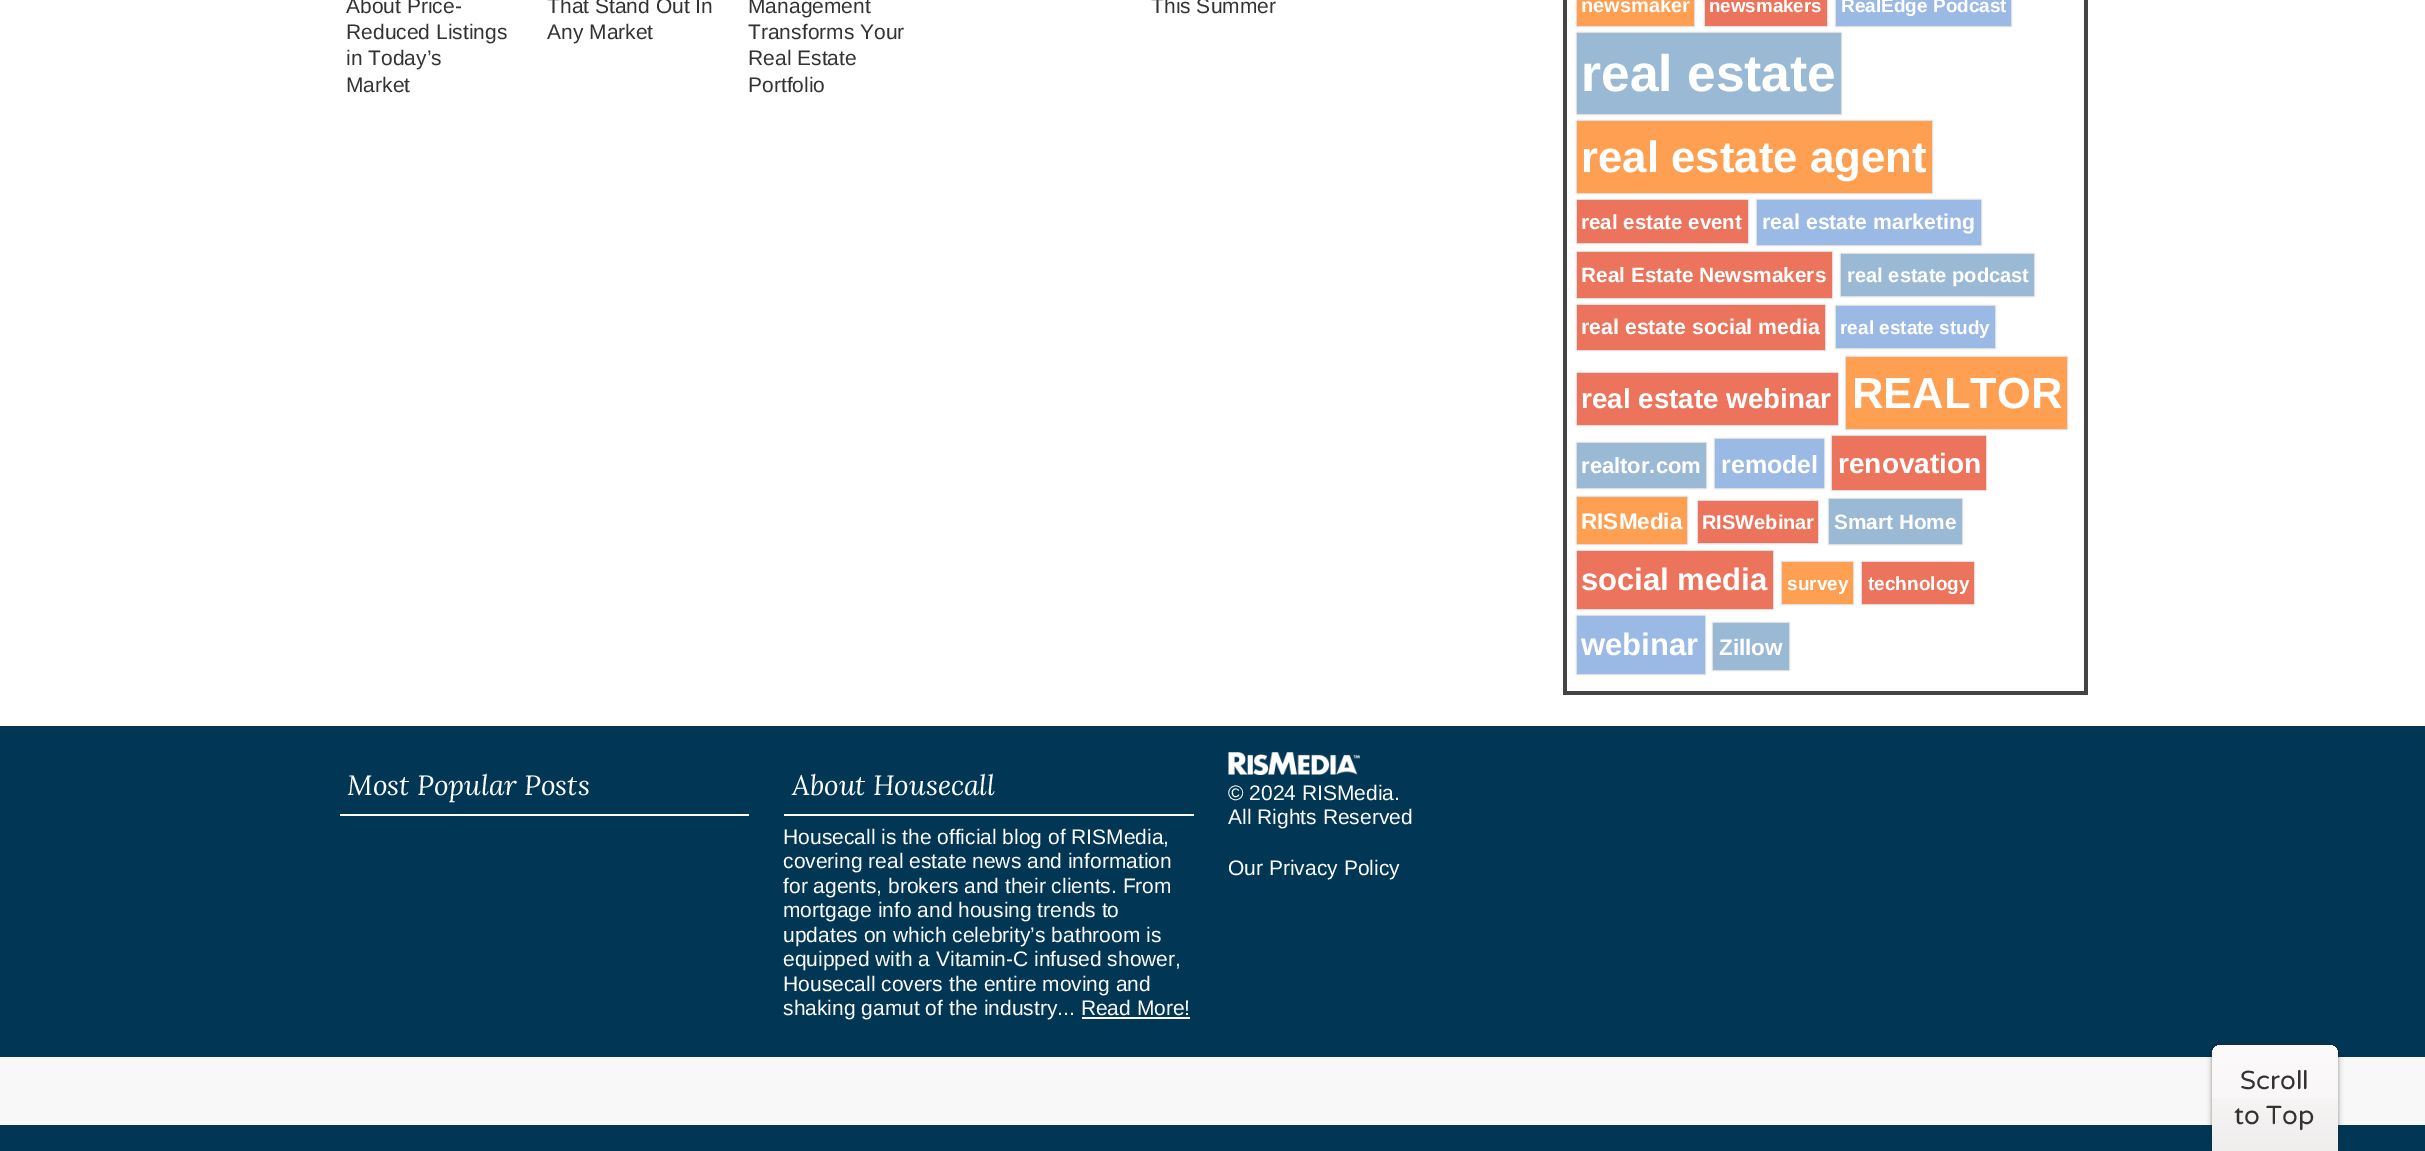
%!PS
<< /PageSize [2425 1151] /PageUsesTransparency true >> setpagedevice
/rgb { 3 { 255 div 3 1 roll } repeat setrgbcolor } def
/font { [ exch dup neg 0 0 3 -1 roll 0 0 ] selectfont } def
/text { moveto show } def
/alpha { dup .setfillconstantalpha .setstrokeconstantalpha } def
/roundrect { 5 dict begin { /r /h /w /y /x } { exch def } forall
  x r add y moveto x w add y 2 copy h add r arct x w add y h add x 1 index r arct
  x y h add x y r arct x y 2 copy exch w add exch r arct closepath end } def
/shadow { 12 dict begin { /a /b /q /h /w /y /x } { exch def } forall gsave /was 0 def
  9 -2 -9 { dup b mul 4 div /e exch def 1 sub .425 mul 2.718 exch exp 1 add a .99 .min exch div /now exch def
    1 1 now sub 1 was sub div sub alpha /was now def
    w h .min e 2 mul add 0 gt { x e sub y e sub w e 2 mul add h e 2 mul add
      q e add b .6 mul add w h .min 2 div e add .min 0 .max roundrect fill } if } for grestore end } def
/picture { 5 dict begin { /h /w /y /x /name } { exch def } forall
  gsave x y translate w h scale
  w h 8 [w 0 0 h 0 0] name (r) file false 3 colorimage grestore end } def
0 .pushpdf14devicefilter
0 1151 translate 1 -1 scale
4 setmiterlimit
255 255 255 rgb
0 0 2425 1151 rectfill
68 68 68 rgb
2084 0 4 695 rectfill
1563 691 525 4 rectfill
1563 0 4 695 rectfill
153 153 153 rgb
1577 -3 117 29 0 1 1 shadow
255 159 81 rgb
1577 0 117 26 rectfill
153 153 153 rgb
1705 -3 122 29 0 1 1 shadow
236 116 92 rgb
1705 0 122 26 rectfill
153 153 153 rgb
1836 -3 175 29 0 1 1 shadow
154 185 228 rgb
1836 0 175 26 rectfill
153 153 153 rgb
1577 33 264 81 0 1 1 shadow
154 185 212 rgb
1577 33 264 81 rectfill
153 153 153 rgb
1577 121 355 72 0 1 1 shadow
255 159 81 rgb
1577 121 355 72 rectfill
153 153 153 rgb
1577 200 171 43 0 1 1 shadow
236 116 92 rgb
1577 200 171 43 rectfill
153 153 153 rgb
1757 200 224 45 0 1 1 shadow
154 185 228 rgb
1757 200 224 45 rectfill
153 153 153 rgb
1577 252 255 46 0 1 1 shadow
236 116 92 rgb
1577 252 255 46 rectfill
153 153 153 rgb
1841 254 193 42 0 1 1 shadow
154 185 212 rgb
1841 254 193 42 rectfill
153 153 153 rgb
1577 305 248 45 0 1 1 shadow
236 116 92 rgb
1577 305 248 45 rectfill
153 153 153 rgb
1836 306 159 42 0 1 1 shadow
154 185 228 rgb
1836 306 159 42 rectfill
153 153 153 rgb
1577 373 261 52 0 1 1 shadow
236 116 92 rgb
1577 373 261 52 rectfill
153 153 153 rgb
1846 357 221 72 0 1 1 shadow
255 159 81 rgb
1846 357 221 72 rectfill
153 153 153 rgb
1577 443 129 45 0 1 1 shadow
154 185 212 rgb
1577 443 129 45 rectfill
153 153 153 rgb
1715 439 109 49 0 1 1 shadow
154 185 228 rgb
1715 439 109 49 rectfill
153 153 153 rgb
1832 436 154 54 0 1 1 shadow
236 116 92 rgb
1832 436 154 54 rectfill
153 153 153 rgb
1577 497 110 47 0 1 1 shadow
255 159 81 rgb
1577 497 110 47 rectfill
153 153 153 rgb
1698 501 120 42 0 1 1 shadow
236 116 92 rgb
1698 501 120 42 rectfill
153 153 153 rgb
1829 499 133 45 0 1 1 shadow
154 185 212 rgb
1829 499 133 45 rectfill
153 153 153 rgb
1577 551 196 58 0 1 1 shadow
236 116 92 rgb
1577 551 196 58 rectfill
153 153 153 rgb
1782 562 71 42 0 1 1 shadow
255 159 81 rgb
1782 562 71 42 rectfill
153 153 153 rgb
1862 562 112 42 0 1 1 shadow
236 116 92 rgb
1862 562 112 42 rectfill
153 153 153 rgb
1577 616 128 58 0 1 1 shadow
154 185 228 rgb
1577 616 128 58 rectfill
153 153 153 rgb
1713 623 76 47 0 1 1 shadow
154 185 212 rgb
1713 623 76 47 rectfill
1 54 85 rgb
0 726 2425 425 rectfill
255 255 255 rgb
340 814 409 2 rectfill
784 814 410 2 rectfill
1082 1017 108 2 rectfill
(img_01.rgb) 1228 752 132 23 picture
248 248 248 rgb
0 1057 2425 68 rectfill
34 25 25 rgb
2212 1045 126 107 9 2.5 0.5 shadow
gsave 2221 1045 moveto 108 0 rlineto 5 0 9 4 9 9 rcurveto 0 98 rlineto -126 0 rlineto 0 -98 rlineto 0 -5 4 -9 9 -9 rcurveto closepath clip newpath
<< /ShadingType 2 /ColorSpace /DeviceRGB /Coords [2275 1045 2275 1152] /Extend [true true] /Function << /FunctionType 3 /Domain [0 1] /Functions [<< /FunctionType 2 /Domain [0 1] /C0 [0.992 0.98 0.984] /C1 [0.976 0.969 0.969] /N 1 >> << /FunctionType 2 /Domain [0 1] /C0 [0.965 0.953 0.957] /C1 [0.941 0.929 0.929] /N 1 >>] /Bounds [0.5] /Encode [0 1 0 1] >> >> shfill grestore
/LiberationSans-Regular 21 font
51 51 51 rgb
(About Price-) 346 13 text
(Reduced Listings) 346 39 text
(in Today’s) 346 65 text
(Market) 346 92 text
(That Stand Out In) 547 13 text
(Any Market) 547 39 text
(Management) 748 13 text
(Transforms Your) 748 39 text
(Real Estate) 748 65 text
(Portfolio) 748 92 text
(This Summer) 1151 13 text
/LiberationSans-Bold 20 font
255 255 255 rgb
(newsmaker) 1581 12 text
/LiberationSans-Bold 18.75 font
(newsmakers) 1709 12 text
/LiberationSans-Bold 19 font
(RealEdge Podcast) 1841 12 text
/LiberationSans-Bold 51.5 font
(real estate) 1581 91 text
/LiberationSans-Bold 43.75 font
(real estate agent) 1581 172 text
/LiberationSans-Bold 20.5 font
(real estate event) 1581 229 text
/LiberationSans-Bold 21.25 font
(real estate marketing) 1762 229 text
/LiberationSans-Bold 20.8 font
(Real Estate Newsmakers) 1581 282 text
/LiberationSans-Bold 20.1 font
(real estate podcast) 1847 282 text
/LiberationSans-Bold 21.25 font
(real estate social media) 1581 334 text
/LiberationSans-Bold 19 font
(real estate study) 1840 334 text
/LiberationSans-Bold 27.75 font
(real estate webinar) 1581 408 text
/LiberationSans-Bold 43.5 font
(REALTOR) 1852 408 text
/LiberationSans-Bold 22 font
(realtor.com) 1581 473 text
/LiberationSans-Bold 25 font
(remodel) 1721 473 text
/LiberationSans-Bold 28 font
(renovation) 1838 473 text
/LiberationSans-Bold 22.5 font
(RISMedia) 1581 529 text
/LiberationSans-Bold 20 font
(RISWebinar) 1702 529 text
/LiberationSans-Bold 20.8 font
(Smart Home) 1834 529 text
/LiberationSans-Bold 31 font
(social media) 1581 590 text
/LiberationSans-Bold 19 font
(survey) 1787 590 text
(technology) 1868 590 text
/LiberationSans-Bold 31 font
(webinar) 1581 655 text
/LiberationSans-Bold 22.5 font
(Zillow) 1719 655 text
/Lora-Italic 28 font
(Most Popular Posts) 347 795 text
(About Housecall) 792 795 text
/LiberationSans-Regular 21 font
(Housecall is the official blog of RISMedia,) 783 844 text
(covering real estate news and information) 783 868 text
(for agents, brokers and their clients. From) 783 893 text
(mortgage info and housing trends to) 783 917 text
(updates on which celebrity’s bathroom is) 783 942 text
(equipped with a Vitamin-C infused shower,) 783 966 text
(Housecall covers the entire moving and) 783 991 text
(shaking gamut of the industry... Read More!) 783 1015 text
(© 2024 RISMedia.) 1228 800 text
(All Rights Reserved) 1228 824 text
(Our Privacy Policy) 1228 875 text
/VarelaRound-Regular 26 font
51 51 51 rgb
(Scroll) 2240 1089 text
(to Top) 2234 1124 text
.poppdf14devicefilter showpage
